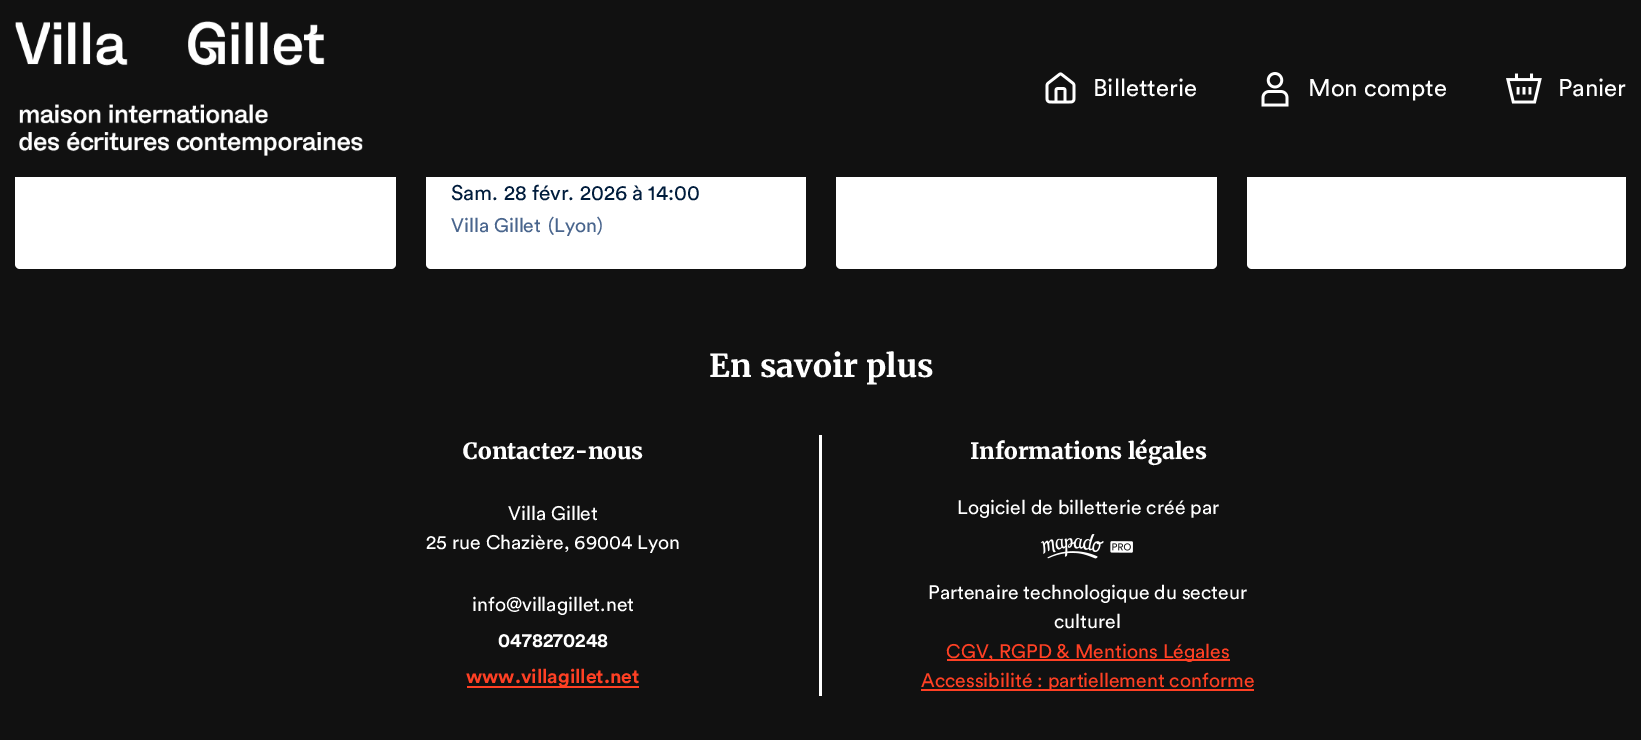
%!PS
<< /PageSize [1641 740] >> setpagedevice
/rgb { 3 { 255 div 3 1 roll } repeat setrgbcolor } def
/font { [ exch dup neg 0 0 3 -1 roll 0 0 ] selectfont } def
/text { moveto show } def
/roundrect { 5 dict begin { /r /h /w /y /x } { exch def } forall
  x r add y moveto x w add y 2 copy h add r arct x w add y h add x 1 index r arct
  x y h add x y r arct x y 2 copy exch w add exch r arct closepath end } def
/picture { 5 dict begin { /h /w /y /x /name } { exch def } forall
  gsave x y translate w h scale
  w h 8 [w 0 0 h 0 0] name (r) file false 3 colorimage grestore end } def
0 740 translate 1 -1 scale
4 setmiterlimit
17 17 17 rgb
0 0 1641 740 rectfill
255 255 255 rgb
15 -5 381 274 5 roundrect fill
426 -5 380 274 5 roundrect fill
836 -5 381 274 5 roundrect fill
1247 -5 379 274 5 roundrect fill
17 17 17 rgb
15 0 1611 177 rectfill
(img_01.rgb) 15 21 348 135 picture
(img_02.rgb) 1045 72 31 32 picture
(img_03.rgb) 1261 72 28 35 picture
(img_04.rgb) 1506 73 36 31 picture
255 255 255 rgb
819 435 3 261 rectfill
255 64 36 rgb
467 686 172 2 rectfill
(img_05.rgb) 1040 534 93 25 picture
947 659 283 2 rectfill
921 689 333 2 rectfill
/Circular-Regular 24 font
255 255 255 rgb
(Billetterie) 1093 96 text
(Mon compte) 1308 96 text
(Panier) 1558 96 text
/Circular-Regular 21 font
0 28 60 rgb
(Sam. 28 févr. 2026 à 14:00) 451 200 text
/Circular-Regular 19.5 font
73 101 141 rgb
(Villa Gillet) 451 232 text
(\(Lyon\)) 548 232 text
/Merriweather-ExtraBold 31.5 font
255 255 255 rgb
709 377 moveto 1 0 32 (En savoir plus) widthshow
/Merriweather-Black 22.5 font
(Contactez-nous) 463 459 text
/Circular-Regular 19.5 font
(Villa Gillet) 508 520 text
(25 rue Chazière, 69004 Lyon) 426 549 text
(info@villagillet.net) 472 611 text
/Circular-Bold 19.5 font
(0478270248) 498 647 text
255 64 36 rgb
(www.villagillet.net) 466 683 text
/Merriweather-Black 22.5 font
255 255 255 rgb
(Informations légales) 970 459 text
/Circular-Regular 19.5 font
(Logiciel de billetterie créé par) 957 514 text
(Partenaire technologique du secteur) 928 599 text
(culturel) 1054 628 text
255 64 36 rgb
(CGV, RGPD & Mentions Légales) 946 658 text
(Accessibilité : partiellement conforme) 921 687 text
showpage
